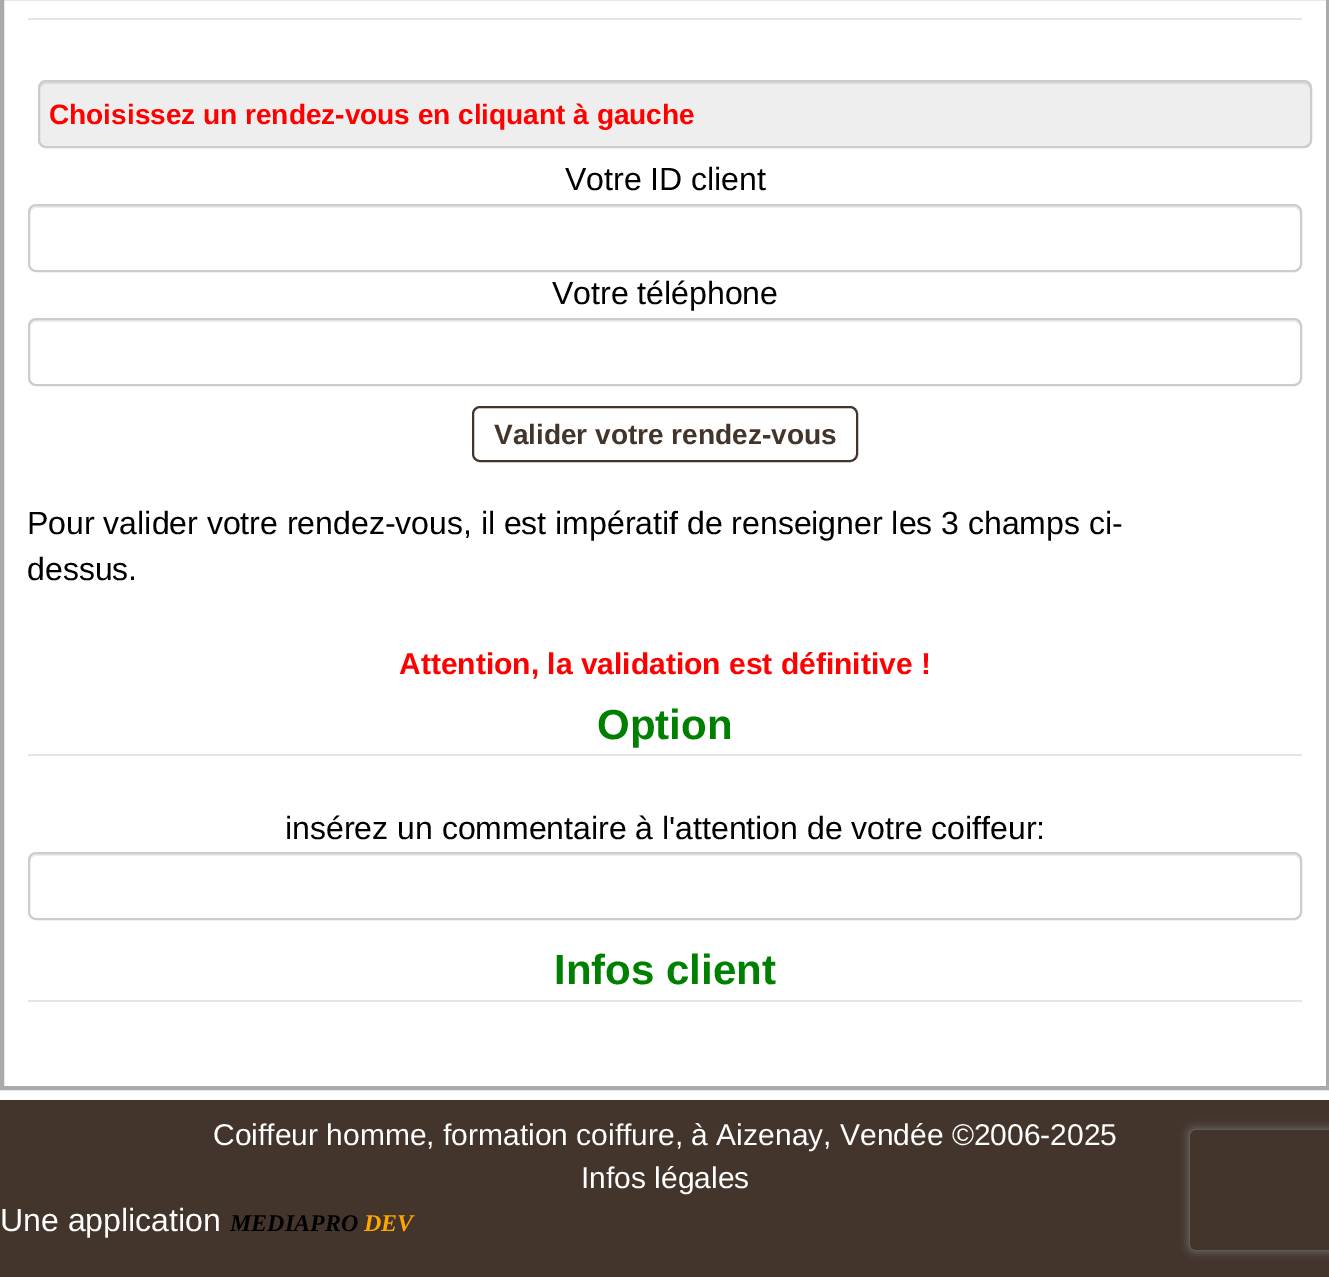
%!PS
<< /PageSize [1329 1277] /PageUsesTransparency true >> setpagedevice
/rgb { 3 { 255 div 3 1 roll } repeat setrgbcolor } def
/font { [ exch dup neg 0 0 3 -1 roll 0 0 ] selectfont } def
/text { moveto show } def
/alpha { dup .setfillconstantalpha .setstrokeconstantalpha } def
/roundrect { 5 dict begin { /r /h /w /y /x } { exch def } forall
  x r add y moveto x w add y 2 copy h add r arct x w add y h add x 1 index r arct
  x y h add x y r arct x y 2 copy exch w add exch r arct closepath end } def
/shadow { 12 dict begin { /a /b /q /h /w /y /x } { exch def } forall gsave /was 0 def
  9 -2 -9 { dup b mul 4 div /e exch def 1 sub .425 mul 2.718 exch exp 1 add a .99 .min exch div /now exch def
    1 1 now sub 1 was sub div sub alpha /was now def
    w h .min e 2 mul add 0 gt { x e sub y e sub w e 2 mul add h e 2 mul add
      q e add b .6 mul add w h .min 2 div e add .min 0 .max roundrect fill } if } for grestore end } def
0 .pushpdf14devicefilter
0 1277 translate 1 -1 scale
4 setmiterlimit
255 255 255 rgb
0 0 1329 1277 rectfill
170 170 170 rgb
4 setlinewidth
2 -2 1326 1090 rectstroke
229 229 229 rgb
28 18 1274 2 rectfill
238 238 238 rgb
38 80 1274 68 8 roundrect fill
220 220 220 rgb
46 84 moveto 1258 0 rlineto 3 0 6 3 6 6 rcurveto 0 -2 rlineto 0 -3 -3 -6 -6 -6 rcurveto -1258 0 rlineto -3 0 -6 3 -6 6 rcurveto 0 2 rlineto 0 -3 3 -6 6 -6 rcurveto closepath fill
204 204 204 rgb
2 setlinewidth
39 81 1272 66 7 roundrect stroke
236 236 236 rgb
36 208 moveto 1258 0 rlineto 3 0 6 3 6 6 rcurveto 0 -2 rlineto 0 -3 -3 -6 -6 -6 rcurveto -1258 0 rlineto -3 0 -6 3 -6 6 rcurveto 0 2 rlineto 0 -3 3 -6 6 -6 rcurveto closepath fill
204 204 204 rgb
29 205 1272 66 7 roundrect stroke
236 236 236 rgb
36 322 moveto 1258 0 rlineto 3 0 6 3 6 6 rcurveto 0 -2 rlineto 0 -3 -3 -6 -6 -6 rcurveto -1258 0 rlineto -3 0 -6 3 -6 6 rcurveto 0 2 rlineto 0 -3 3 -6 6 -6 rcurveto closepath fill
204 204 204 rgb
29 319 1272 66 7 roundrect stroke
67 53 44 rgb
473 407 384 54 7 roundrect stroke
229 229 229 rgb
28 754 1274 2 rectfill
236 236 236 rgb
36 856 moveto 1258 0 rlineto 3 0 6 3 6 6 rcurveto 0 -2 rlineto 0 -3 -3 -6 -6 -6 rcurveto -1258 0 rlineto -3 0 -6 3 -6 6 rcurveto 0 2 rlineto 0 -3 3 -6 6 -6 rcurveto closepath fill
204 204 204 rgb
29 853 1272 66 7 roundrect stroke
229 229 229 rgb
28 1000 1274 2 rectfill
67 53 44 rgb
0 1100 1329 177 rectfill
gsave
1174 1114 moveto 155 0 rlineto 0 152 rlineto -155 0 rlineto closepath 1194 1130 moveto 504 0 rlineto 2 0 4 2 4 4 rcurveto 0 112 rlineto 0 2 -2 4 -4 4 rcurveto -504 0 rlineto -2 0 -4 -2 -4 -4 rcurveto 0 -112 rlineto 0 -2 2 -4 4 -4 rcurveto closepath eoclip newpath
128 128 128 rgb
1190 1130 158 120 4 5 1 shadow
grestore
/LiberationSans-Bold 28 font
255 0 0 rgb
(Choisissez un rendez-vous en cliquant à gauche) 49 124 text
/LiberationSans-Regular 32 font
0 0 0 rgb
(Votre ID client) 565 190 text
(Votre téléphone) 552 304 text
/LiberationSans-Bold 28 font
67 53 44 rgb
(Valider votre rendez-vous) 494 444 text
/LiberationSans-Regular 32 font
0 0 0 rgb
(Pour valider votre rendez-vous, il est impératif de renseigner les 3 champs ci-) 27 534 text
(dessus.) 27 580 text
/LiberationSans-Bold 30 font
255 0 0 rgb
(Attention, la validation est définitive !) 399 674 text
/LiberationSans-Bold 42 font
0 128 0 rgb
(Option) 597 739 text
/LiberationSans-Regular 32 font
0 0 0 rgb
(insérez un commentaire à l'attention de votre coiffeur:) 285 839 text
/LiberationSans-Bold 42 font
0 128 0 rgb
(Infos client) 554 984 text
/LiberationSans-Regular 30 font
255 255 255 rgb
(Coiffeur homme, formation coiffure, à Aizenay, Vendée ©2006-2025) 213 1145 text
(Infos légales) 581 1188 text
/LiberationSans-Regular 32 font
(Une application) 0 1231 text
/LiberationSerif-BoldItalic 24 font
0 0 0 rgb
(MEDIAPRO) 230 1231 text
255 165 0 rgb
(DEV) 364 1231 text
.poppdf14devicefilter showpage
